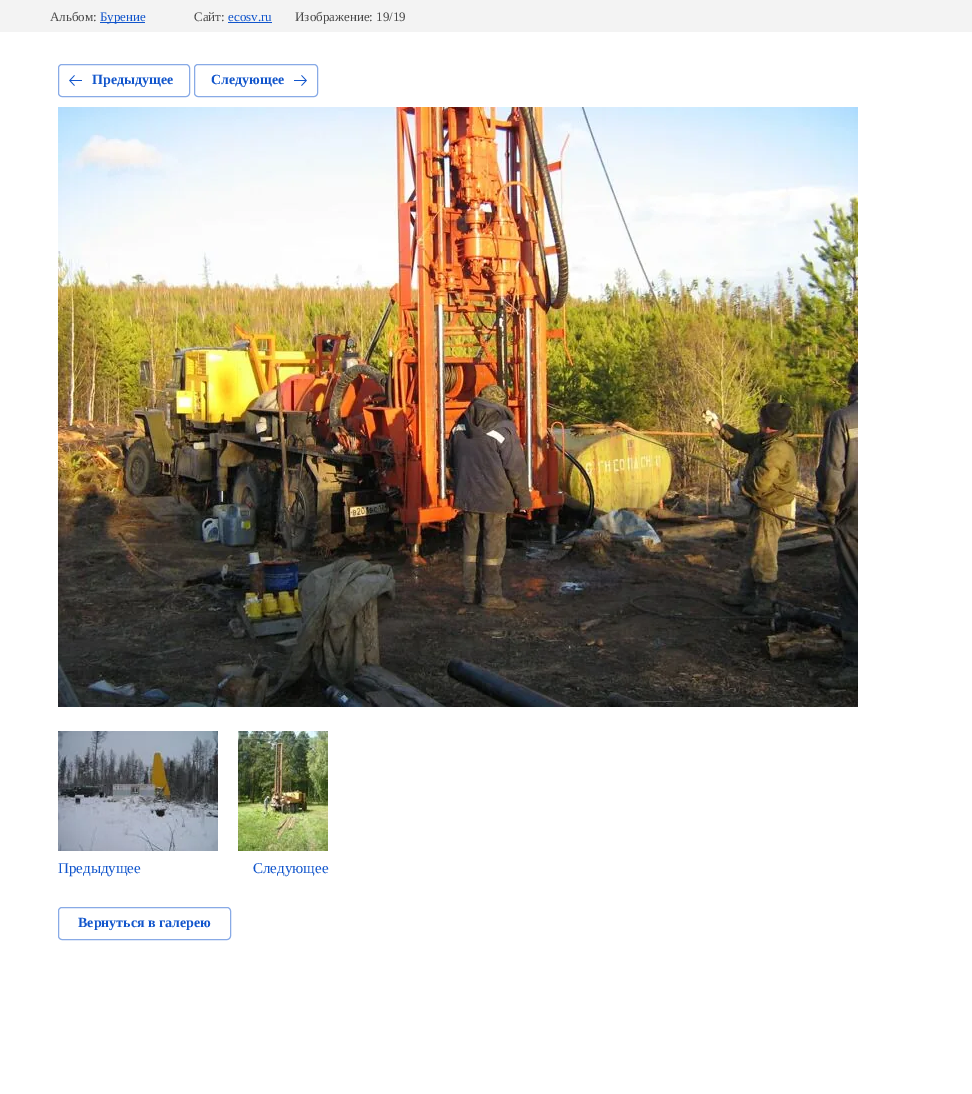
%!PS
<< /PageSize [972 1094] >> setpagedevice
/rgb { 3 { 255 div 3 1 roll } repeat setrgbcolor } def
/font { [ exch dup neg 0 0 3 -1 roll 0 0 ] selectfont } def
/text { moveto show } def
/roundrect { 5 dict begin { /r /h /w /y /x } { exch def } forall
  x r add y moveto x w add y 2 copy h add r arct x w add y h add x 1 index r arct
  x y h add x y r arct x y 2 copy exch w add exch r arct closepath end } def
/picture { 5 dict begin { /h /w /y /x /name } { exch def } forall
  gsave x y translate w h scale
  w h 8 [w 0 0 h 0 0] name (r) file false 3 colorimage grestore end } def
0 1094 translate 1 -1 scale
4 setmiterlimit
255 255 255 rgb
0 0 972 1094 rectfill
243 243 243 rgb
0 0 972 32 rectfill
17 85 204 rgb
100 22 45 1 rectfill
228 22 44 1 rectfill
136 170 230 rgb
58.5 64.5 131 32 3.5 roundrect stroke
(img_01.rgb) 69 75 13 11 picture
194.5 64.5 123 32 3.5 roundrect stroke
(img_02.rgb) 294 75 13 11 picture
(img_03.rgb) 58 107 800 600 picture
(img_04.rgb) 58 731 160 120 picture
(img_05.rgb) 238 731 90 120 picture
58.5 907.5 172 32 3.5 roundrect stroke
/LiberationSerif-Regular 13 font
72 72 72 rgb
(Альбом:) 50 21 text
17 85 204 rgb
(Бурение) 100 21 text
72 72 72 rgb
(Сайт:) 194 21 text
17 85 204 rgb
(ecosv.ru) 228 21 text
72 72 72 rgb
(Изображение: 19/19) 295 21 text
/LiberationSerif-Bold 14 font
17 85 204 rgb
(Предыдущее) 92 84 text
(Следующее) 211 84 text
/LiberationSerif-Regular 15 font
(Предыдущее) 58 873 text
(Следующее) 253 873 text
/LiberationSerif-Bold 14 font
(Вернуться в галерею) 78 927 text
showpage
